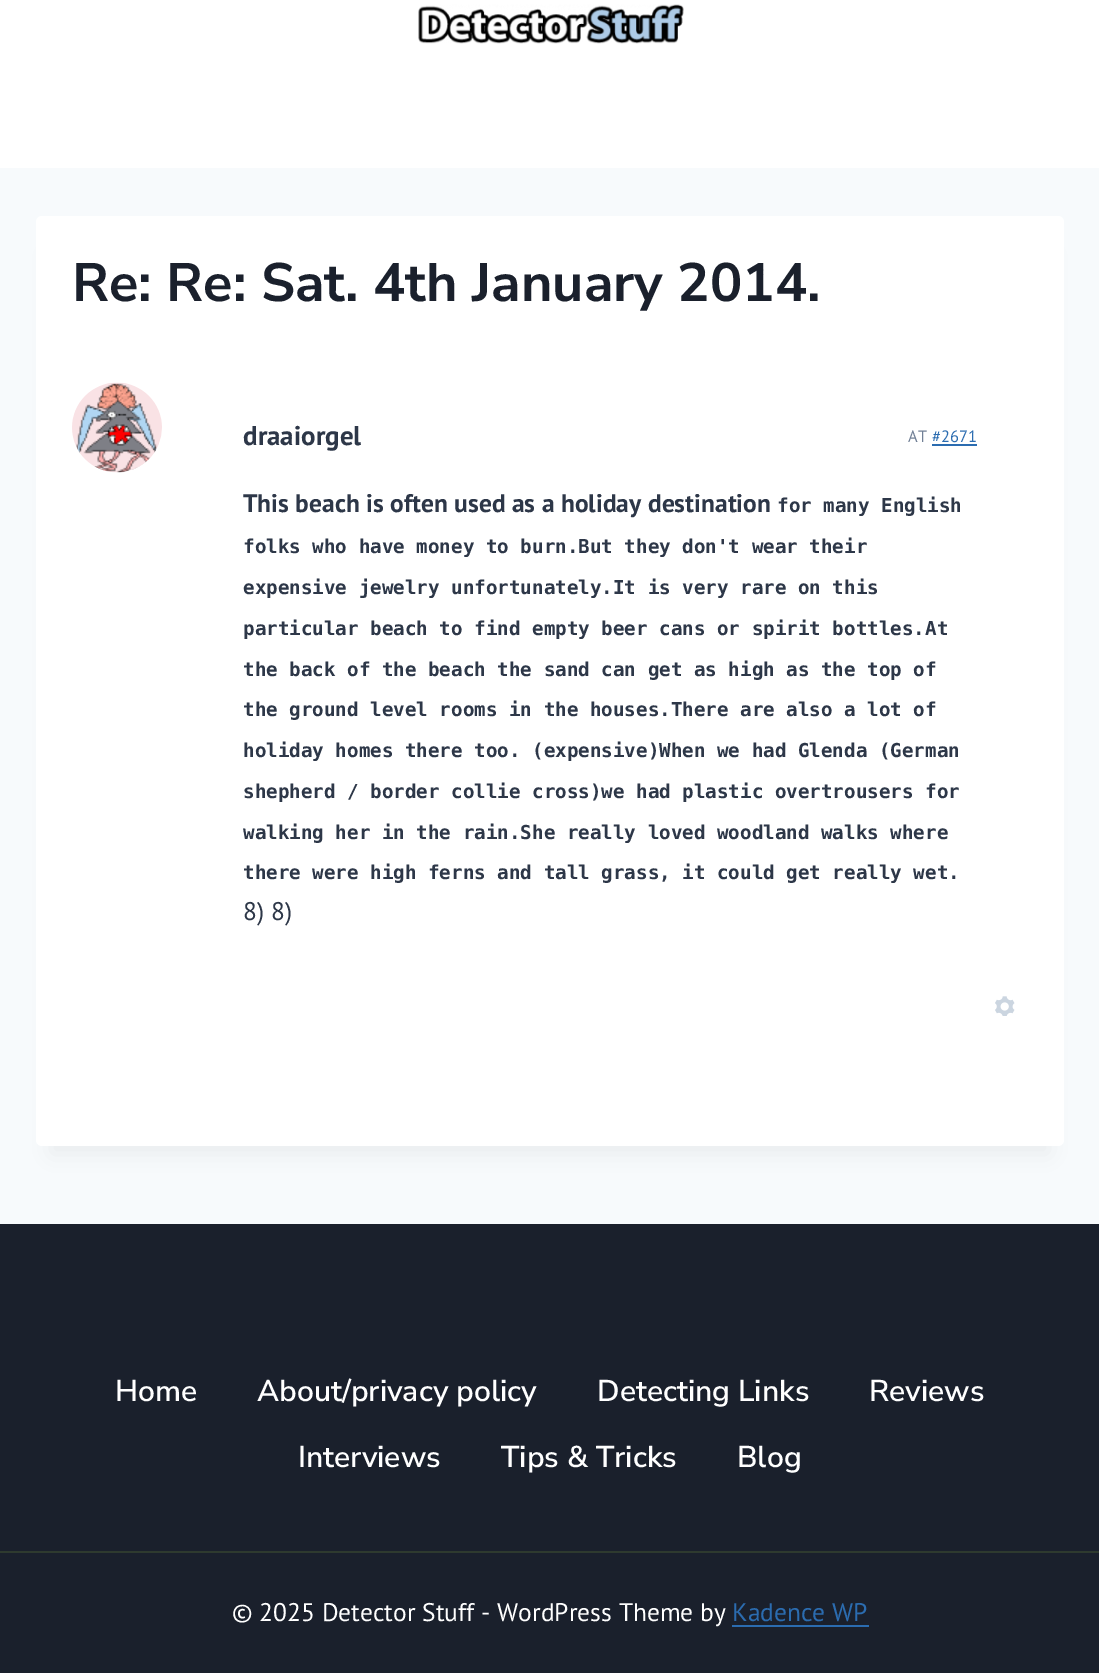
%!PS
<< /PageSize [1099 1673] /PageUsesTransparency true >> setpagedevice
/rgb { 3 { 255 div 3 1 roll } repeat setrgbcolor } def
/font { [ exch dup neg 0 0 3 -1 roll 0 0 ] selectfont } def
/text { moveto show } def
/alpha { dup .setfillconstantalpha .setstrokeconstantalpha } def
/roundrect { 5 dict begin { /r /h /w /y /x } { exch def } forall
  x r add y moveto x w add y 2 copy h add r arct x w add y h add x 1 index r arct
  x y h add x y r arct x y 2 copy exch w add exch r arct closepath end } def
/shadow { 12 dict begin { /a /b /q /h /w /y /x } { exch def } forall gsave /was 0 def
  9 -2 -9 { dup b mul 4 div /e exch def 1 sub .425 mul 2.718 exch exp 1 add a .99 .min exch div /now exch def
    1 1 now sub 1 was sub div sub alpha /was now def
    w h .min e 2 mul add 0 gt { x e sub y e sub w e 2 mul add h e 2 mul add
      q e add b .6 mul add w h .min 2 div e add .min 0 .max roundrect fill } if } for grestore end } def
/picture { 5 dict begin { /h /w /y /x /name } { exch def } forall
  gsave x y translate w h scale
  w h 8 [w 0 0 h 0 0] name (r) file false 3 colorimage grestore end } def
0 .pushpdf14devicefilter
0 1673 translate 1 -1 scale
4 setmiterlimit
247 250 252 rgb
0 0 1099 1673 rectfill
255 255 255 rgb
0 0 1099 168 rectfill
(img_01.rgb) 418 4 266 40 picture
0 0 0 rgb
51 254 998 900 0 11 0.05 shadow
255 255 255 rgb
36 216 1028 930 6 roundrect fill
(img_02.rgb) 72 382 90 91 picture
43 108 176 rgb
932 444 45 2 rectfill
(img_03.rgb) 995 996 20 20 picture
26 32 44 rgb
0 1224 1099 449 rectfill
46 58 47 rgb
0 1551 1099 2 rectfill
43 108 176 rgb
732 1625 137 2 rectfill
/NunitoSans-Bold 54 font
26 32 44 rgb
(Re: Re: Sat. 4th January 2014.) 72 301 text
/PTSans-Bold 27 font
45 55 72 rgb
(draaiorgel) 243 445 text
/PTSans-Regular 16.5 font
113 128 150 rgb
(AT) 908 442 text
43 108 176 rgb
(#2671) 932 442 text
/PTSans-Bold 25.5 font
45 55 72 rgb
(This beach is often used as a holiday destination) 243 512 text
/DejaVuSansMono-Bold 19.2 font
(for many English) 777 512 text
(folks who have money to burn.But they don't wear their) 243 553 text
(expensive jewelry unfortunately.It is very rare on this) 243 594 text
(particular beach to find empty beer cans or spirit bottles.At) 243 635 text
(the back of the beach the sand can get as high as the top of) 243 676 text
(the ground level rooms in the houses.There are also a lot of) 243 716 text
(holiday homes there too. \(expensive\)When we had Glenda \(German) 243 757 text
(shepherd / border collie cross\)we had plastic overtrousers for) 243 798 text
(walking her in the rain.She really loved woodland walks where) 243 839 text
(there were high ferns and tall grass, it could get really wet.) 243 879 text
/PTSans-Regular 25.5 font
(8\) 8\)) 243 920 text
/NunitoSans-SemiBold 30 font
255 255 255 rgb
(Home) 115 1401 text
(About/privacy policy) 257 1401 text
(Detecting Links) 597 1401 text
(Reviews) 869 1401 text
(Interviews) 298 1467 text
(Tips & Tricks) 501 1467 text
(Blog) 737 1467 text
/PTSans-Regular 25.5 font
(© 2025 Detector Stuff - WordPress Theme by) 232 1621 text
43 108 176 rgb
(Kadence WP) 732 1621 text
.poppdf14devicefilter showpage
